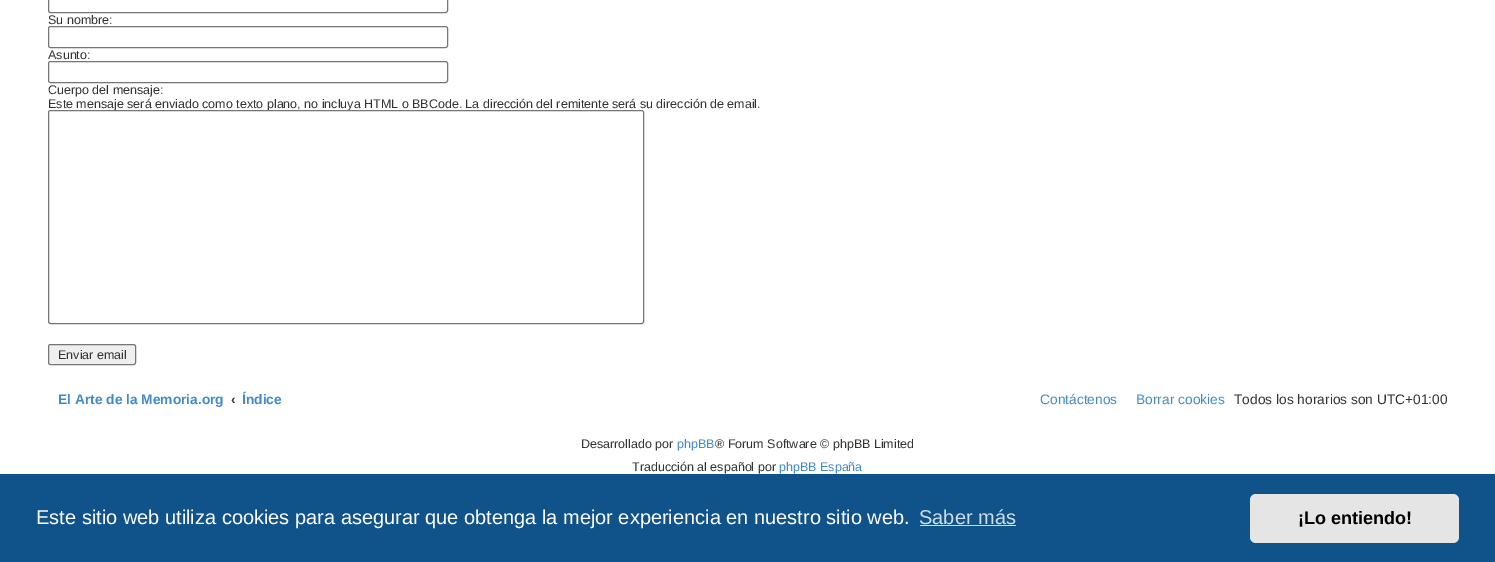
%!PS
<< /PageSize [1495 562] >> setpagedevice
/rgb { 3 { 255 div 3 1 roll } repeat setrgbcolor } def
/font { [ exch dup neg 0 0 3 -1 roll 0 0 ] selectfont } def
/text { moveto show } def
/roundrect { 5 dict begin { /r /h /w /y /x } { exch def } forall
  x r add y moveto x w add y 2 copy h add r arct x w add y h add x 1 index r arct
  x y h add x y r arct x y 2 copy exch w add exch r arct closepath end } def
0 562 translate 1 -1 scale
4 setmiterlimit
255 255 255 rgb
0 0 1495 562 rectfill
118 118 118 rgb
48.5 -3.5 399 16 2 roundrect stroke
48.5 26.5 399 21 2 roundrect stroke
48.5 61.5 399 21 2 roundrect stroke
239 239 239 rgb
48.5 344.5 87 20 2 roundrect gsave fill grestore
118 118 118 rgb
stroke
15 83 138 rgb
0 474 1495 88 rectfill
207 221 232 rgb
920 525 96 1 rectfill
229 229 229 rgb
1250 494 209 49 6 roundrect fill
/LiberationSans-Regular 12.5 font
51 51 51 rgb
(Su nombre:) 48 24 text
(Asunto:) 48 59 text
(Cuerpo del mensaje:) 48 94 text
(Este mensaje será enviado como texto plano, no incluya HTML o BBCode. La dirección del remitente será su dirección de email.) 48 108 text
255 255 255 rgb
48.5 110.5 595 213 2 roundrect gsave fill grestore
118 118 118 rgb
stroke
51 51 51 rgb
(Enviar email) 58 359 text
/LiberationSans-Bold 13.75 font
66 139 202 rgb
(El Arte de la Memoria.org) 58 404 text
51 51 51 rgb
(‹) 231 404 text
gsave
243 384 38 31 rectclip
66 139 202 rgb
(Índice) 242 404 text
grestore
/LiberationSans-Regular 13.75 font
66 139 202 rgb
(Contáctenos) 1040 404 text
(Borrar cookies) 1136 404 text
51 51 51 rgb
(Todos los horarios son UTC+01:00) 1234 404 text
/LiberationSans-Regular 12.5 font
(Desarrollado por) 581 448 text
66 139 202 rgb
(phpBB) 677 448 text
51 51 51 rgb
(® Forum Software © phpBB Limited) 715 448 text
(Traducción al español por) 632 471 text
66 139 202 rgb
(phpBB España) 779 471 text
/LiberationSans-Regular 20 font
255 255 255 rgb
(Este sitio web utiliza cookies para asegurar que obtenga la mejor experiencia en nuestro sitio web.) 36 524 text
207 221 232 rgb
(Saber más) 919 524 text
/LiberationSans-Bold 18 font
0 0 0 rgb
(¡Lo entiendo!) 1298 524 text
showpage
